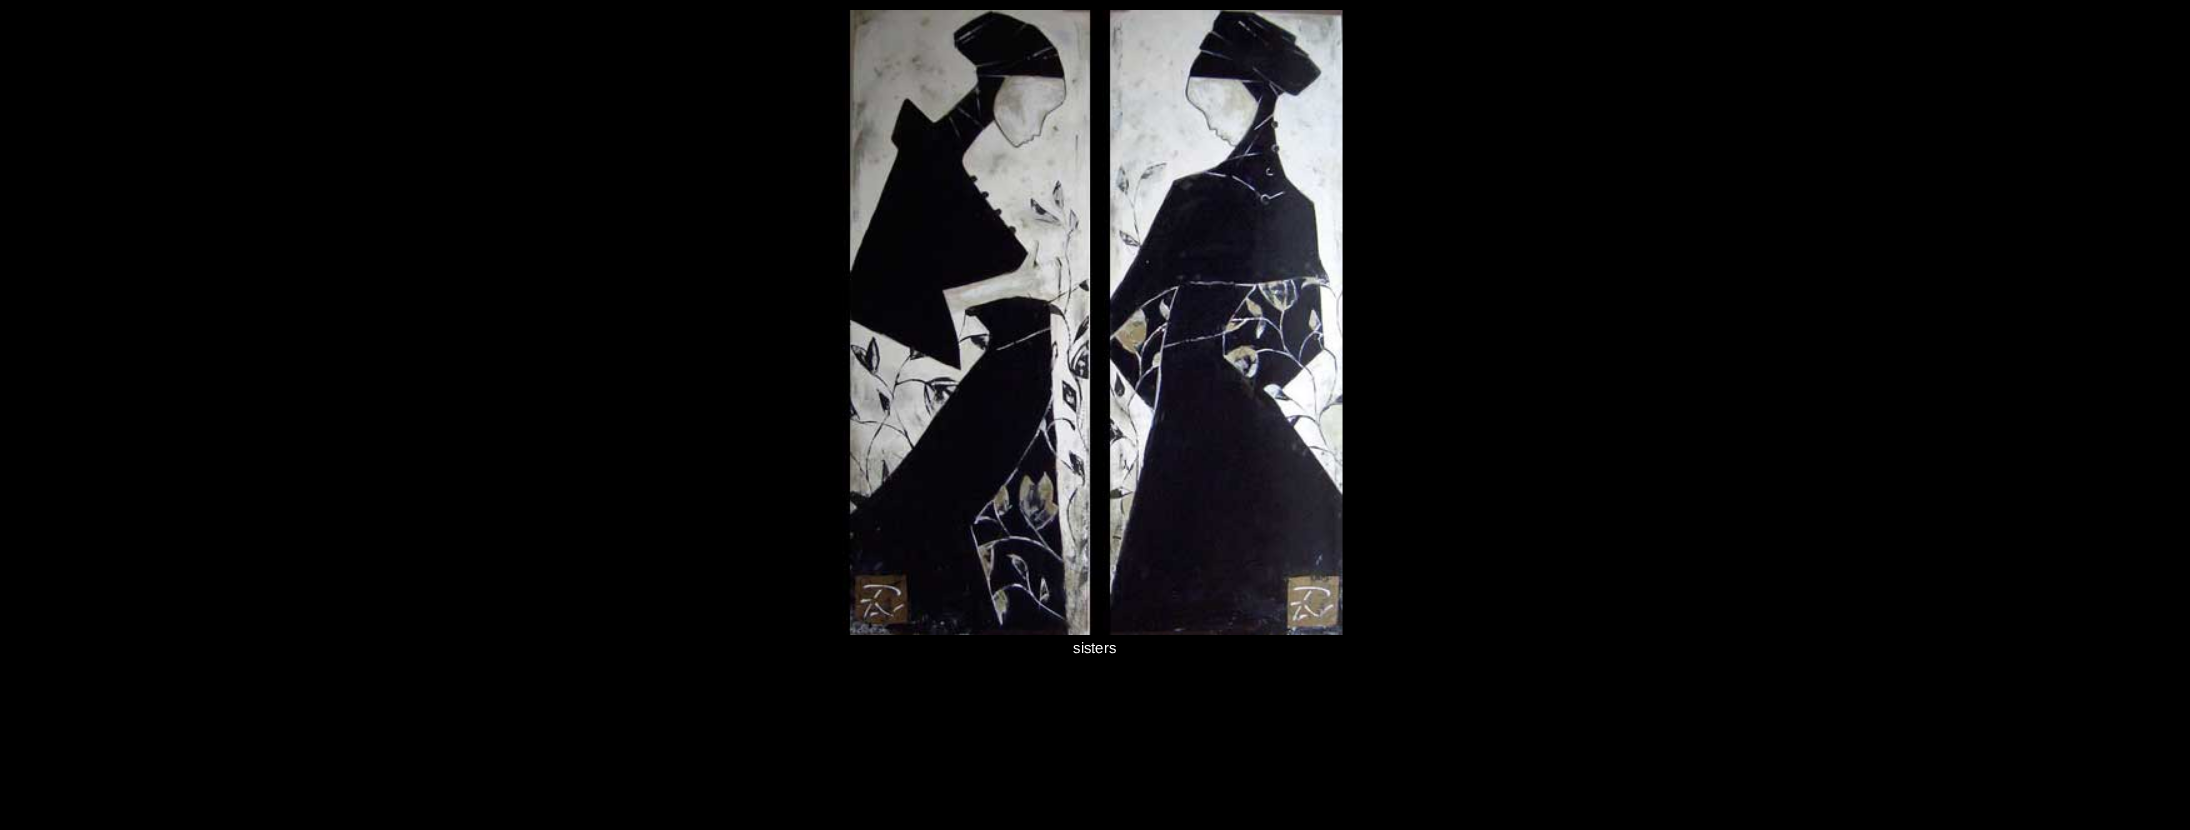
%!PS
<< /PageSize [2190 830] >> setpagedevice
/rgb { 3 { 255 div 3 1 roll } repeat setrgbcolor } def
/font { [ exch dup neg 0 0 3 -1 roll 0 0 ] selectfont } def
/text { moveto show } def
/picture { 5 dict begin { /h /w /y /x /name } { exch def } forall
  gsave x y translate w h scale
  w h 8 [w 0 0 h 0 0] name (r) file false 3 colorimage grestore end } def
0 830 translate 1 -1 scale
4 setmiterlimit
0 0 0 rgb
0 0 2190 830 rectfill
(img_01.rgb) 842 10 501 625 picture
/LiberationSans-Regular 15 font
255 255 255 rgb
(sisters) 1073 653 text
showpage
